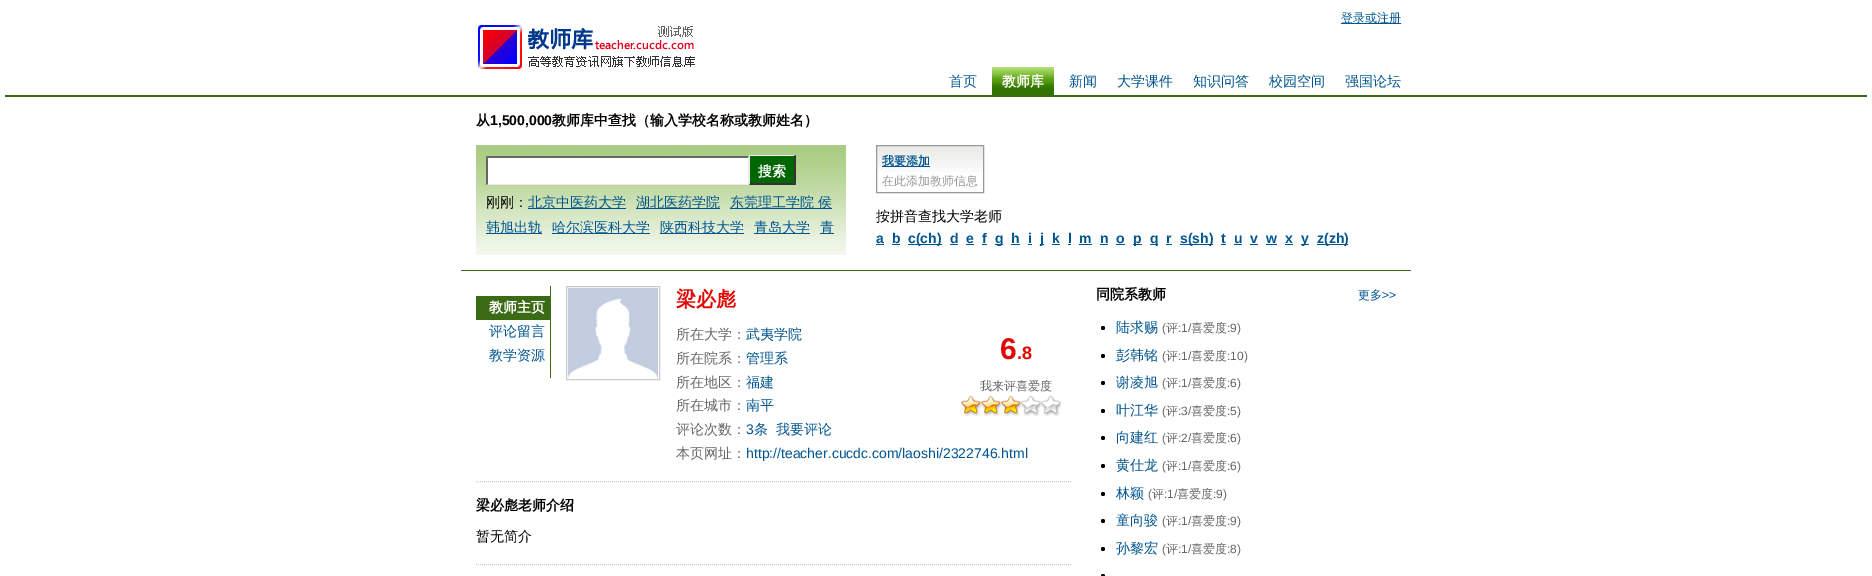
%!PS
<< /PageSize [1872 576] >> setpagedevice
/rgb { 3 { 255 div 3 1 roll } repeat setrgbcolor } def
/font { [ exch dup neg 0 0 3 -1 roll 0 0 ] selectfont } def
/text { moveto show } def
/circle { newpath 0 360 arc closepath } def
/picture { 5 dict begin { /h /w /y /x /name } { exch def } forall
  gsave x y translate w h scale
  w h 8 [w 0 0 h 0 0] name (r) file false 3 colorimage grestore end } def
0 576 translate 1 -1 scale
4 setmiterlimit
255 255 255 rgb
0 0 1872 576 rectfill
58 106 20 rgb
5 95 1862 2 rectfill
(img_01.rgb) 478 25 217 44 picture
0 85 144 rgb
1341 23 60 1 rectfill
(img_02.rgb) 992 67 62 28 picture
58 106 20 rgb
461 270 950 1 rectfill
(img_03.rgb) 476 145 370 110 picture
255 255 255 rgb
488 158 260 26 rectfill
102 102 102 rgb
486 156 moveto 263 0 rlineto -1 2 rlineto -260 0 rlineto closepath fill
234 234 234 rgb
749 156 moveto 0 29 rlineto -1 -1 rlineto 0 -26 rlineto closepath fill
749 185 moveto -263 0 rlineto 2 -1 rlineto 260 0 rlineto closepath fill
102 102 102 rgb
486 185 moveto 0 -29 rlineto 2 2 rlineto 0 26 rlineto closepath fill
0 102 0 rgb
750 156 44 27 rectfill
234 234 234 rgb
749 155 moveto 47 0 rlineto -2 1 rlineto -44 0 rlineto closepath fill
51 51 51 rgb
796 155 moveto 0 30 rlineto -2 -2 rlineto 0 -27 rlineto closepath fill
796 185 moveto -47 0 rlineto 1 -2 rlineto 44 0 rlineto closepath fill
234 234 234 rgb
749 185 moveto 0 -30 rlineto 1 1 rlineto 0 27 rlineto closepath fill
0 85 144 rgb
528 208 98 1 rectfill
636 208 84 1 rectfill
730 208 102 1 rectfill
486 233 56 1 rectfill
552 233 98 1 rectfill
660 233 84 1 rectfill
754 233 56 1 rectfill
820 233 14 1 rectfill
(img_04.rgb) 877 146 106 26 picture
153 153 153 rgb
876.5 145.5 107 47 rectstroke
0 85 144 rgb
882 166 48 1 rectfill
876 244 8 1 rectfill
892 244 8 1 rectfill
908 244 34 1 rectfill
950 244 8 1 rectfill
966 244 8 1 rectfill
982 244 5 1 rectfill
995 244 8 1 rectfill
1011 244 9 1 rectfill
1028 244 4 1 rectfill
1040 244 4 1 rectfill
1052 244 8 1 rectfill
1068 244 3 1 rectfill
1079 244 13 1 rectfill
1100 244 8 1 rectfill
1116 244 9 1 rectfill
1133 244 9 1 rectfill
1150 244 8 1 rectfill
1166 244 6 1 rectfill
1180 244 33 1 rectfill
1221 244 5 1 rectfill
1234 244 8 1 rectfill
1250 244 8 1 rectfill
1266 244 11 1 rectfill
1285 244 8 1 rectfill
1301 244 8 1 rectfill
1317 244 31 1 rectfill
204 204 204 rgb
[1 1] 0 setdash
476 481.5 moveto 595 0 rlineto stroke
58 106 20 rgb
550 286 1 92 rectfill
476 296 74 24 rectfill
204 204 204 rgb
[] 0 setdash
566.5 286.5 93 93 rectstroke
(img_05.rgb) 568 288 90 90 picture
(img_06.rgb) 1021 395 40 21 picture
(img_07.rgb) 961 395 60 21 picture
[1 1] 0 setdash
476 564.5 moveto 595 0 rlineto stroke
0 0 0 rgb
1103 328 2 circle fill
1103 356 2 circle fill
1103 383 2 circle fill
1103 411 2 circle fill
1103 438 2 circle fill
1103 466 2 circle fill
1103 494 2 circle fill
1103 521 2 circle fill
1103 549 2 circle fill
1103 576 2 circle fill
/WenQuanYiZenHei-Medium 12 font
0 85 144 rgb
(登录或注册) 1341 22 text
/WenQuanYiZenHei-Medium 14 font
(首页) 949 86 text
/WenQuanYiZenHei-Bold 14 font
255 255 255 rgb
(教师库) 1002 86 text
/WenQuanYiZenHei-Medium 14 font
0 85 144 rgb
(新闻) 1069 86 text
(大学课件) 1117 86 text
(知识问答) 1193 86 text
(校园空间) 1269 86 text
(强国论坛) 1345 86 text
/WenQuanYiZenHei-Bold 14 font
0 0 0 rgb
(从) 476 125 text
/LiberationSans-Bold 14 font
(1,500,000) 490 125 text
/WenQuanYiZenHei-Bold 14 font
(教师库中查找（输入学校名称或教师姓名）) 552 125 text
255 255 255 rgb
(搜索) 758 176 text
/WenQuanYiZenHei-Medium 14 font
0 0 0 rgb
(刚刚：) 486 207 text
0 85 144 rgb
(北京中医药大学) 528 207 text
(湖北医药学院) 636 207 text
(东莞理工学院 侯) 730 207 text
(韩旭出轨) 486 232 text
(哈尔滨医科大学) 552 232 text
(陕西科技大学) 660 232 text
(青岛大学) 754 232 text
(青) 820 232 text
/WenQuanYiZenHei-Bold 12 font
(我要添加) 882 165 text
/WenQuanYiZenHei-Medium 12 font
153 153 153 rgb
(在此添加教师信息) 882 185 text
/WenQuanYiZenHei-Medium 14 font
0 0 0 rgb
(按拼音查找大学老师) 876 221 text
/LiberationSans-Bold 14 font
0 85 144 rgb
(a) 876 243 text
(b) 892 243 text
(c\(ch\)) 908 243 text
(d) 950 243 text
(e) 966 243 text
(f) 982 243 text
(g) 995 243 text
(h) 1011 243 text
(i) 1028 243 text
(j) 1040 243 text
(k) 1052 243 text
(l) 1068 243 text
(m) 1079 243 text
(n) 1100 243 text
(o) 1116 243 text
(p) 1133 243 text
(q) 1150 243 text
(r) 1166 243 text
(s\(sh\)) 1180 243 text
(t) 1221 243 text
(u) 1234 243 text
(v) 1250 243 text
(w) 1266 243 text
(x) 1285 243 text
(y) 1301 243 text
(z\(zh\)) 1317 243 text
/WenQuanYiZenHei-Bold 14 font
255 255 255 rgb
(教师主页) 489 312 text
/WenQuanYiZenHei-Medium 14 font
0 85 144 rgb
(评论留言) 489 336 text
(教学资源) 489 360 text
/WenQuanYiZenHei-Bold 20 font
225 6 2 rgb
(梁必彪) 676 306 text
/WenQuanYiZenHei-Medium 14 font
102 102 102 rgb
(所在大学：) 676 339 text
0 85 144 rgb
(武夷学院) 746 339 text
102 102 102 rgb
(所在院系：) 676 363 text
0 85 144 rgb
(管理系) 746 363 text
102 102 102 rgb
(所在地区：) 676 387 text
0 85 144 rgb
(福建) 746 387 text
102 102 102 rgb
(所在城市：) 676 410 text
0 85 144 rgb
(南平) 746 410 text
102 102 102 rgb
(评论次数：) 676 434 text
/LiberationSans-Regular 14 font
0 85 144 rgb
(3) 746 434 text
/WenQuanYiZenHei-Medium 14 font
(条) 754 434 text
(我要评论) 776 434 text
102 102 102 rgb
(本页网址：) 676 458 text
/LiberationSans-Regular 14 font
0 85 144 rgb
(http://teacher.cucdc.com/laoshi/2322746.html) 746 458 text
/LiberationSans-Bold 30 font
225 6 2 rgb
(6) 1000 359 text
/LiberationSans-Bold 18 font
(.8) 1017 359 text
/WenQuanYiZenHei-Medium 12 font
102 102 102 rgb
(我来评喜爱度) 980 390 text
/WenQuanYiZenHei-Bold 14 font
0 0 0 rgb
(梁必彪老师介绍) 476 510 text
/WenQuanYiZenHei-Medium 14 font
(暂无简介) 476 541 text
/WenQuanYiZenHei-Bold 14 font
(同院系教师) 1096 299 text
/WenQuanYiZenHei-Medium 12 font
0 85 144 rgb
(更多) 1358 299 text
/LiberationSans-Regular 12 font
(>>) 1382 299 text
/WenQuanYiZenHei-Medium 14 font
(陆求赐) 1116 332 text
/LiberationSans-Regular 12 font
102 102 102 rgb
(\() 1162 332 text
/WenQuanYiZenHei-Medium 12 font
(评) 1166 332 text
/LiberationSans-Regular 12 font
(:1/) 1178 332 text
/WenQuanYiZenHei-Medium 12 font
(喜爱度) 1191 332 text
/LiberationSans-Regular 12 font
(:9\)) 1227 332 text
/WenQuanYiZenHei-Medium 14 font
0 85 144 rgb
(彭韩铭) 1116 360 text
/LiberationSans-Regular 12 font
102 102 102 rgb
(\() 1162 360 text
/WenQuanYiZenHei-Medium 12 font
(评) 1166 360 text
/LiberationSans-Regular 12 font
(:1/) 1178 360 text
/WenQuanYiZenHei-Medium 12 font
(喜爱度) 1191 360 text
/LiberationSans-Regular 12 font
(:10\)) 1227 360 text
/WenQuanYiZenHei-Medium 14 font
0 85 144 rgb
(谢凌旭) 1116 387 text
/LiberationSans-Regular 12 font
102 102 102 rgb
(\() 1162 387 text
/WenQuanYiZenHei-Medium 12 font
(评) 1166 387 text
/LiberationSans-Regular 12 font
(:1/) 1178 387 text
/WenQuanYiZenHei-Medium 12 font
(喜爱度) 1191 387 text
/LiberationSans-Regular 12 font
(:6\)) 1227 387 text
/WenQuanYiZenHei-Medium 14 font
0 85 144 rgb
(叶江华) 1116 415 text
/LiberationSans-Regular 12 font
102 102 102 rgb
(\() 1162 415 text
/WenQuanYiZenHei-Medium 12 font
(评) 1166 415 text
/LiberationSans-Regular 12 font
(:3/) 1178 415 text
/WenQuanYiZenHei-Medium 12 font
(喜爱度) 1191 415 text
/LiberationSans-Regular 12 font
(:5\)) 1227 415 text
/WenQuanYiZenHei-Medium 14 font
0 85 144 rgb
(向建红) 1116 442 text
/LiberationSans-Regular 12 font
102 102 102 rgb
(\() 1162 442 text
/WenQuanYiZenHei-Medium 12 font
(评) 1166 442 text
/LiberationSans-Regular 12 font
(:2/) 1178 442 text
/WenQuanYiZenHei-Medium 12 font
(喜爱度) 1191 442 text
/LiberationSans-Regular 12 font
(:6\)) 1227 442 text
/WenQuanYiZenHei-Medium 14 font
0 85 144 rgb
(黄仕龙) 1116 470 text
/LiberationSans-Regular 12 font
102 102 102 rgb
(\() 1162 470 text
/WenQuanYiZenHei-Medium 12 font
(评) 1166 470 text
/LiberationSans-Regular 12 font
(:1/) 1178 470 text
/WenQuanYiZenHei-Medium 12 font
(喜爱度) 1191 470 text
/LiberationSans-Regular 12 font
(:6\)) 1227 470 text
/WenQuanYiZenHei-Medium 14 font
0 85 144 rgb
(林颖) 1116 498 text
/LiberationSans-Regular 12 font
102 102 102 rgb
(\() 1148 498 text
/WenQuanYiZenHei-Medium 12 font
(评) 1152 498 text
/LiberationSans-Regular 12 font
(:1/) 1164 498 text
/WenQuanYiZenHei-Medium 12 font
(喜爱度) 1177 498 text
/LiberationSans-Regular 12 font
(:9\)) 1213 498 text
/WenQuanYiZenHei-Medium 14 font
0 85 144 rgb
(童向骏) 1116 525 text
/LiberationSans-Regular 12 font
102 102 102 rgb
(\() 1162 525 text
/WenQuanYiZenHei-Medium 12 font
(评) 1166 525 text
/LiberationSans-Regular 12 font
(:1/) 1178 525 text
/WenQuanYiZenHei-Medium 12 font
(喜爱度) 1191 525 text
/LiberationSans-Regular 12 font
(:9\)) 1227 525 text
/WenQuanYiZenHei-Medium 14 font
0 85 144 rgb
(孙黎宏) 1116 553 text
/LiberationSans-Regular 12 font
102 102 102 rgb
(\() 1162 553 text
/WenQuanYiZenHei-Medium 12 font
(评) 1166 553 text
/LiberationSans-Regular 12 font
(:1/) 1178 553 text
/WenQuanYiZenHei-Medium 12 font
(喜爱度) 1191 553 text
/LiberationSans-Regular 12 font
(:8\)) 1227 553 text
showpage
